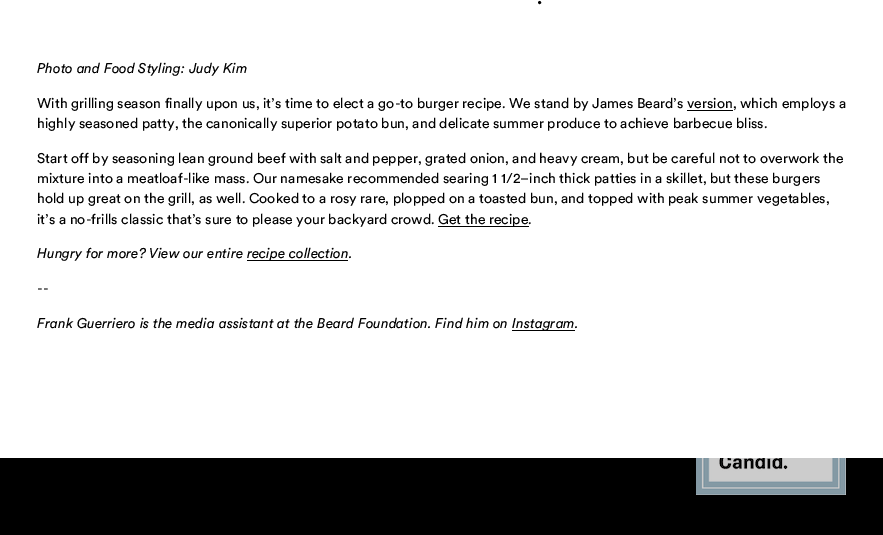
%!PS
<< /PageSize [883 535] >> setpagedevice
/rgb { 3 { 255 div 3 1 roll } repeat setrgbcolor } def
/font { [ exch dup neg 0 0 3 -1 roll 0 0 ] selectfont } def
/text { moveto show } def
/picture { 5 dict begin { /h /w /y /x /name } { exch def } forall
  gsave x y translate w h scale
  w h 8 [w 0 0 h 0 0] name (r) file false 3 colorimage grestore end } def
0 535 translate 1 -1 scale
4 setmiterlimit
0 0 0 rgb
0 0 883 535 rectfill
255 255 255 rgb
0 0 883 458 rectfill
0 0 0 rgb
687 110 46 1 rectfill
438 226 91 1 rectfill
247 260 101 1 rectfill
512 330 63 1 rectfill
(img_01.rgb) 696 458 150 37 picture
/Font-Medium 20 font
(.) 537 4 text
/Circular-Italic 14 font
(Photo and Food Styling: Judy Kim) 37 73 text
/Font-Regular 14 font
(With grilling season finally upon us, it’s time to elect a go-to burger recipe. We stand by James Beard’s version, which employs a) 37 108 text
(highly seasoned patty, the canonically superior potato bun, and delicate summer produce to achieve barbecue bliss.) 37 128 text
(Start off by seasoning lean ground beef with salt and pepper, grated onion, and heavy cream, but be careful not to overwork the) 37 163 text
(mixture into a meatloaf-like mass. Our namesake recommended searing 1 1/2–inch thick patties in a skillet, but these burgers) 37 183 text
(hold up great on the grill, as well. Cooked to a rosy rare, plopped on a toasted bun, and topped with peak summer vegetables,) 37 203 text
(it’s a no-frills classic that’s sure to please your backyard crowd.) 37 224 text
(Get the recipe.) 438 224 text
/Circular-Italic 14 font
(Hungry for more? View our entire) 37 258 text
(recipe collection.) 247 258 text
/Font-Regular 14 font
(--) 37 293 text
/Circular-Italic 14 font
(Frank Guerriero is the media assistant at the Beard Foundation. Find him on) 37 328 text
(Instagram.) 512 328 text
showpage
